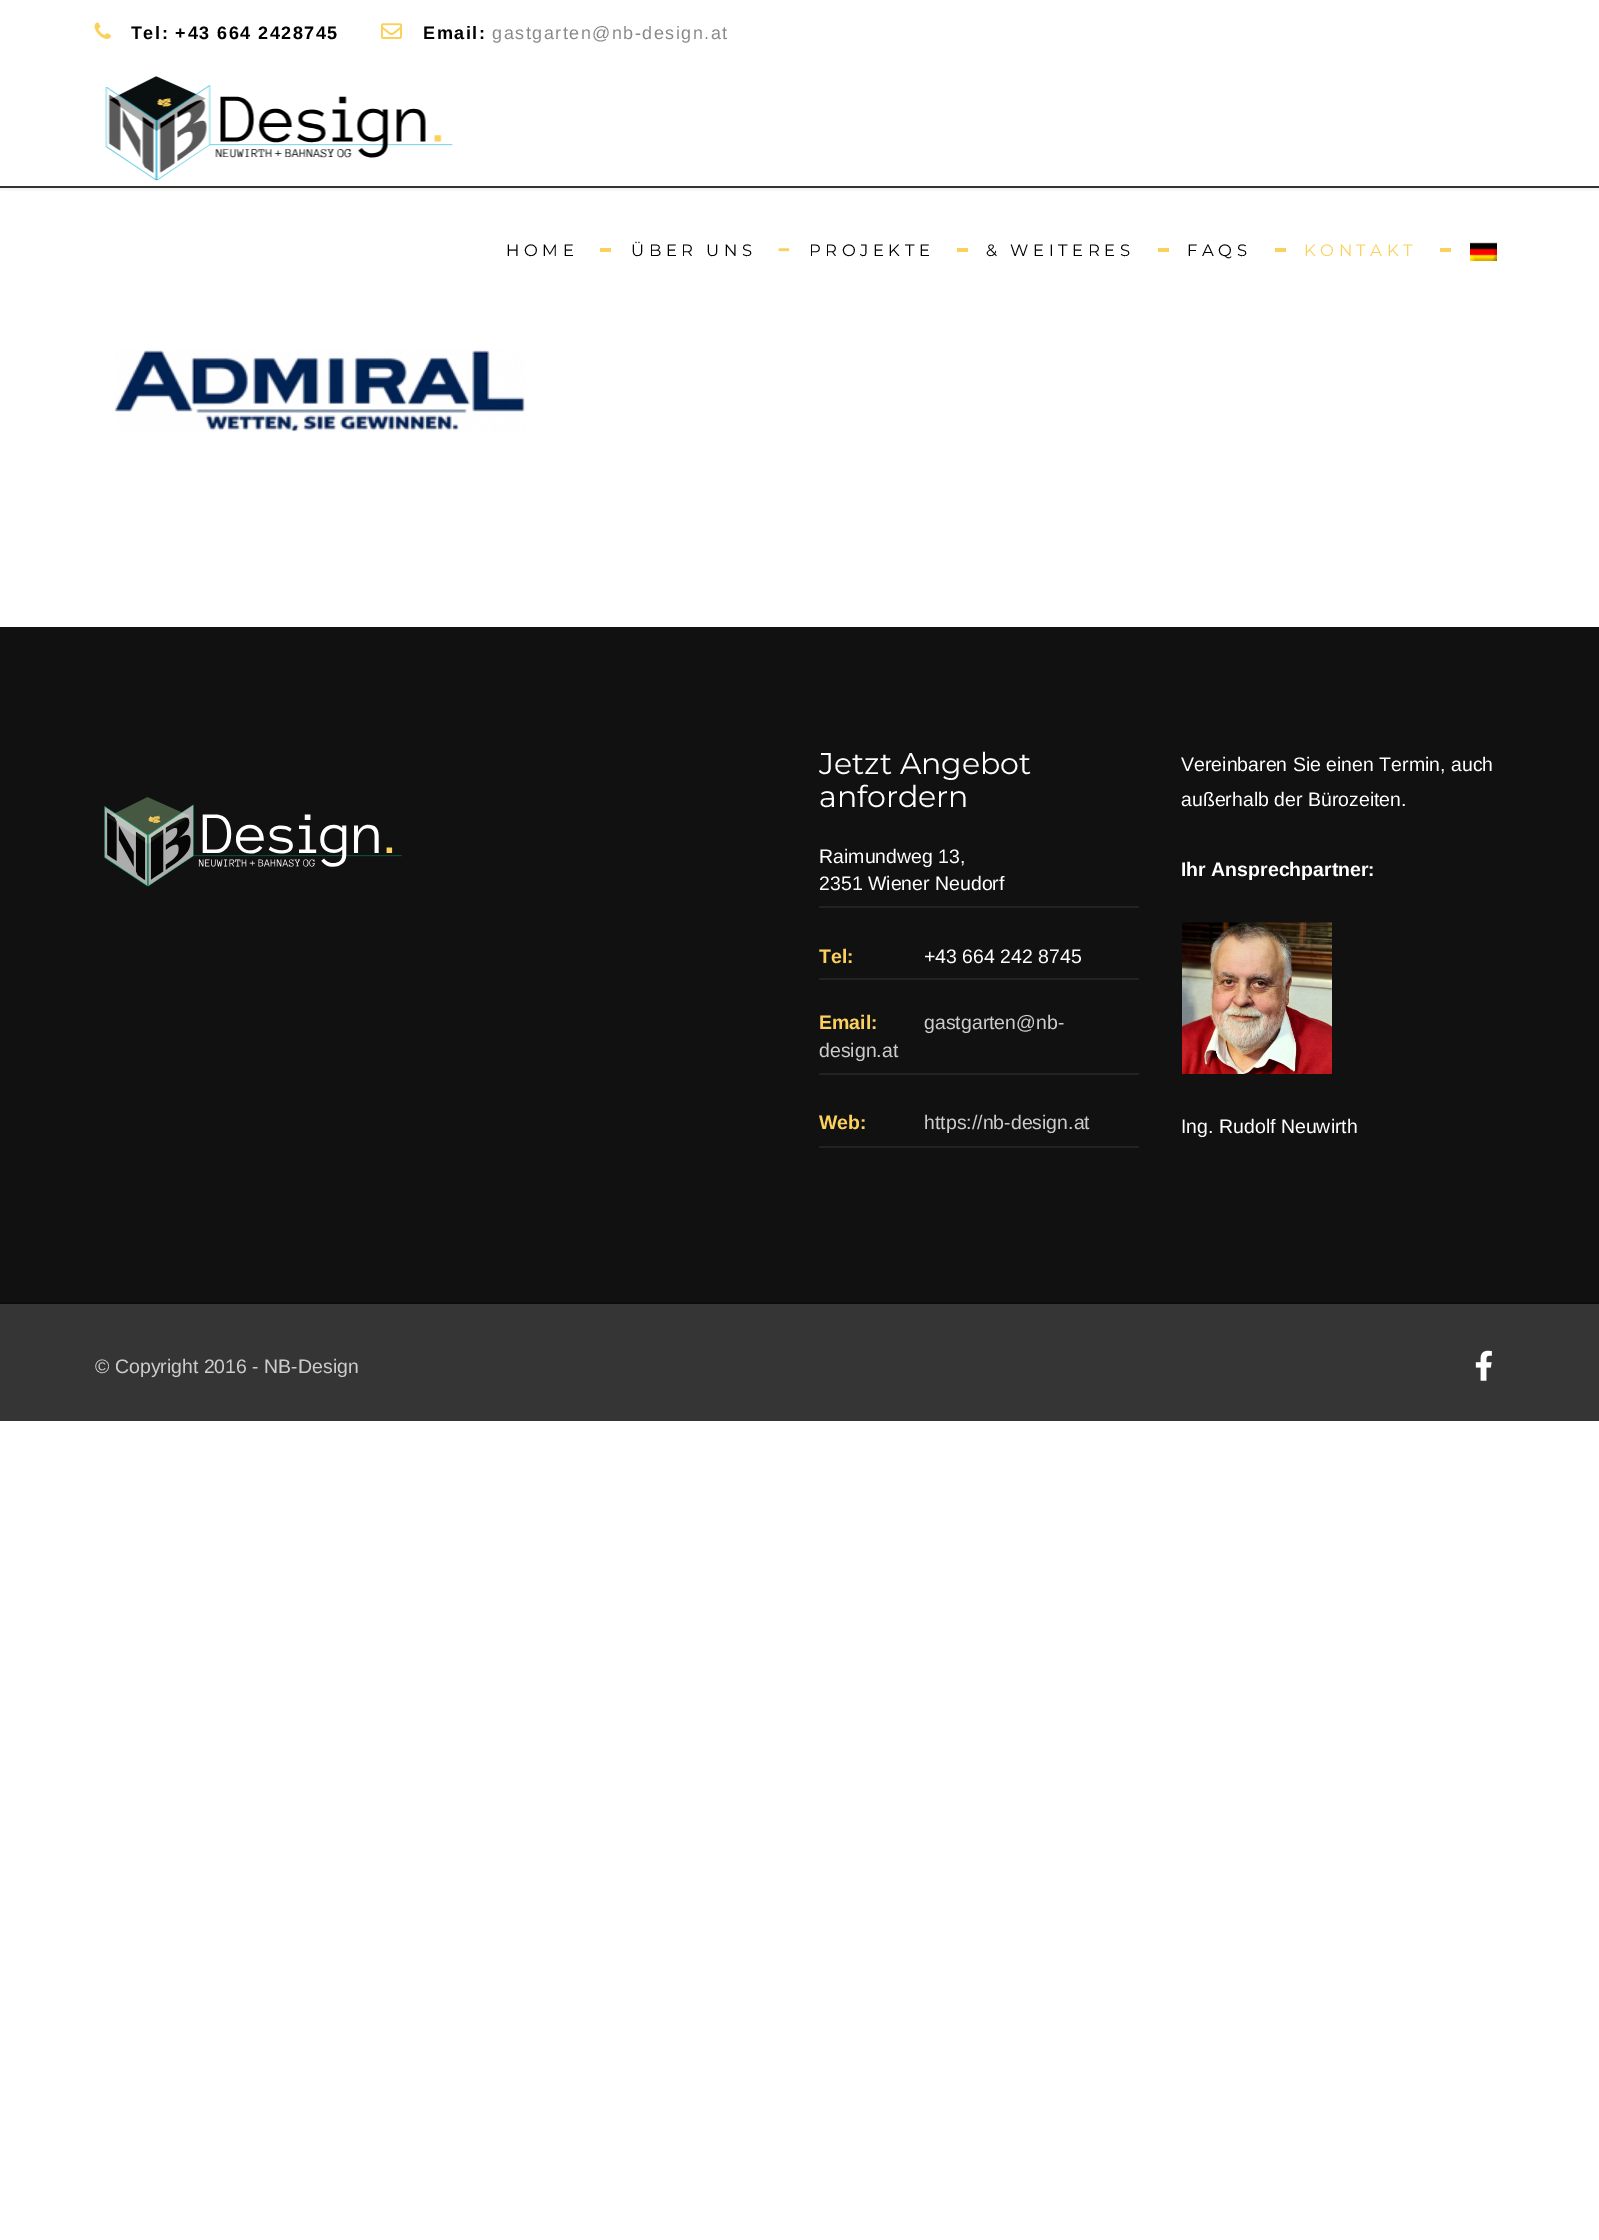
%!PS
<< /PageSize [1599 2240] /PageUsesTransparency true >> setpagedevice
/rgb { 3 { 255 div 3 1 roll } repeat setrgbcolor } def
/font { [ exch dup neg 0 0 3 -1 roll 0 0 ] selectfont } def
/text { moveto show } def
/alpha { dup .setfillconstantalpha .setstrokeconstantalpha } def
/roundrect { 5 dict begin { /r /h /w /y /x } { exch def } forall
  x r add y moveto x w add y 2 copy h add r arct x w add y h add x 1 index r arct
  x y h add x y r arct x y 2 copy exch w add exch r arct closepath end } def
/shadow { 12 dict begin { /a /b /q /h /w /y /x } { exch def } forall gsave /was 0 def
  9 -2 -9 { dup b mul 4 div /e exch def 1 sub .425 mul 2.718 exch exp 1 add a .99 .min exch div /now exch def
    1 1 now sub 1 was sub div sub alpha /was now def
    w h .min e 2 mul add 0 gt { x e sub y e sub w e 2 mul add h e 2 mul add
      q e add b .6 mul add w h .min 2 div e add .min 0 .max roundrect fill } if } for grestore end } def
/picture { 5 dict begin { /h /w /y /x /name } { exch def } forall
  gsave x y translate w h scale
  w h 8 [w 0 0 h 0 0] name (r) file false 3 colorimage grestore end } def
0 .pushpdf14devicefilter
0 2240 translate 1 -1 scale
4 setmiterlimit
255 255 255 rgb
0 0 1599 2240 rectfill
gsave
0 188 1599 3 rectclip
0 0 0 rgb
0 0 1599 188 0 4 0.1 shadow
grestore
51 51 51 rgb
0 186 1599 2 rectfill
(img_01.rgb) 94 22 17 17 picture
(img_02.rgb) 381 23 21 16 picture
(img_03.rgb) 105 76 348 105 picture
251 208 92 rgb
600 248 11 4 rectfill
(img_04.rgb) 778 248 12 4 picture
957 248 11 4 rectfill
1158 248 11 4 rectfill
1275 248 11 4 rectfill
1440 248 11 4 rectfill
(img_05.rgb) 1470 242 27 19 picture
(img_06.rgb) 114 350 412 82 picture
17 17 17 rgb
0 627 1599 675 rectfill
(img_07.rgb) 104 797 298 90 picture
34 34 34 rgb
819 906 320 2 rectfill
819 978 320 2 rectfill
819 1073 320 2 rectfill
819 1146 320 2 rectfill
(img_08.rgb) 1182 922 150 152 picture
53 53 53 rgb
0 1304 1599 117 rectfill
11 11 11 rgb
0 1302 1599 2 rectfill
(img_09.rgb) 1475 1350 17 31 picture
/LiberationSans-Bold 18 font
0 0 0 rgb
131 39 moveto 1.5 0 (Tel: +43 664 2428745) ashow
423 39 moveto 1.5 0 (Email:) ashow
/LiberationSans-Regular 18 font
136 136 136 rgb
492 39 moveto 1.5 0 (gastgarten@nb-design.at) ashow
/Montserrat-Regular 16.5 font
0 0 0 rgb
506 256 moveto 4.5 0 (HOME) ashow
631 256 moveto 4.5 0 (ÜBER UNS) ashow
809 256 moveto 4.5 0 (PROJEKTE) ashow
986 256 moveto 4.5 0 (& WEITERES) ashow
1187 256 moveto 4.5 0 (FAQS) ashow
251 208 92 rgb
1304 256 moveto 4.5 0 (KONTAKT) ashow
/Montserrat-Regular 30 font
255 255 255 rgb
(Jetzt Angebot) 819 774 text
(anfordern) 819 807 text
/LiberationSans-Regular 19.5 font
(Raimundweg 13,) 819 863 text
(2351 Wiener Neudorf) 819 890 text
/LiberationSans-Bold 19.5 font
251 208 92 rgb
(Tel:) 819 963 text
/LiberationSans-Regular 19.5 font
255 255 255 rgb
(+43 664 242 8745) 924 963 text
/LiberationSans-Bold 19.5 font
251 208 92 rgb
(Email:) 819 1029 text
/LiberationSans-Regular 19.5 font
204 204 204 rgb
(gastgarten@nb-) 924 1029 text
(design.at) 819 1057 text
/LiberationSans-Bold 19.5 font
251 208 92 rgb
(Web:) 819 1129 text
/LiberationSans-Regular 19.5 font
204 204 204 rgb
(https://nb-design.at) 924 1129 text
255 255 255 rgb
(Vereinbaren Sie einen Termin, auch) 1181 771 text
(außerhalb der Bürozeiten.) 1181 806 text
/LiberationSans-Bold 19.5 font
(Ihr Ansprechpartner:) 1181 876 text
/LiberationSans-Regular 19.5 font
(Ing. Rudolf Neuwirth) 1181 1133 text
204 204 204 rgb
(© Copyright 2016 - NB-Design) 95 1373 text
.poppdf14devicefilter showpage
